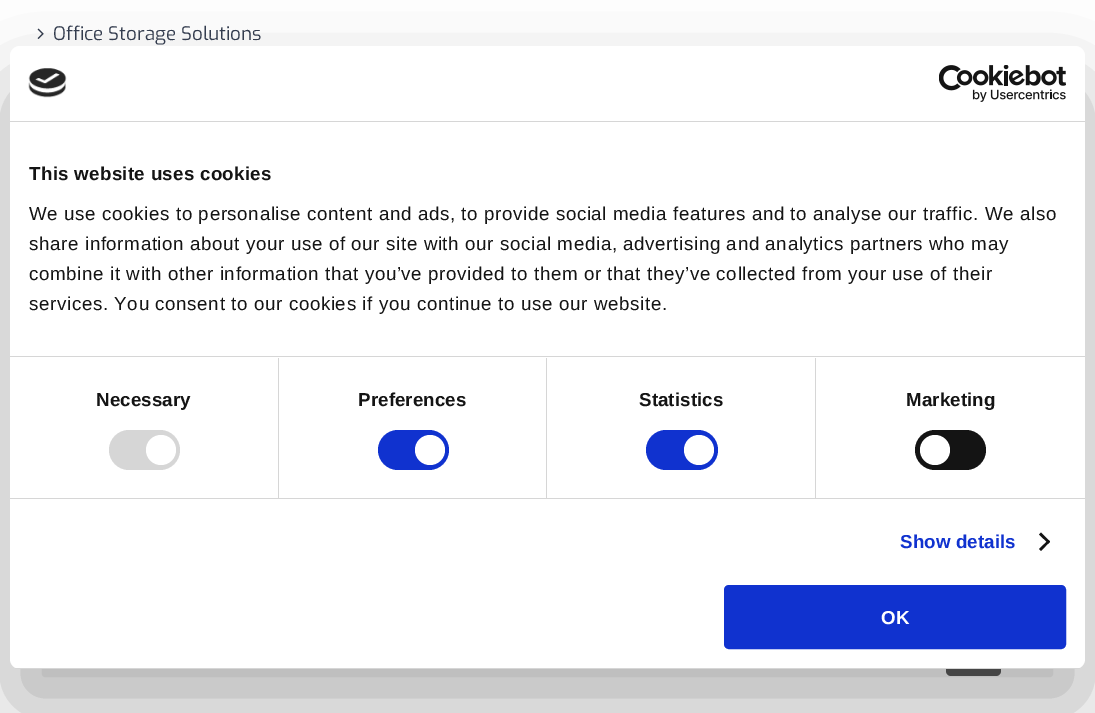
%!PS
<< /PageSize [1095 713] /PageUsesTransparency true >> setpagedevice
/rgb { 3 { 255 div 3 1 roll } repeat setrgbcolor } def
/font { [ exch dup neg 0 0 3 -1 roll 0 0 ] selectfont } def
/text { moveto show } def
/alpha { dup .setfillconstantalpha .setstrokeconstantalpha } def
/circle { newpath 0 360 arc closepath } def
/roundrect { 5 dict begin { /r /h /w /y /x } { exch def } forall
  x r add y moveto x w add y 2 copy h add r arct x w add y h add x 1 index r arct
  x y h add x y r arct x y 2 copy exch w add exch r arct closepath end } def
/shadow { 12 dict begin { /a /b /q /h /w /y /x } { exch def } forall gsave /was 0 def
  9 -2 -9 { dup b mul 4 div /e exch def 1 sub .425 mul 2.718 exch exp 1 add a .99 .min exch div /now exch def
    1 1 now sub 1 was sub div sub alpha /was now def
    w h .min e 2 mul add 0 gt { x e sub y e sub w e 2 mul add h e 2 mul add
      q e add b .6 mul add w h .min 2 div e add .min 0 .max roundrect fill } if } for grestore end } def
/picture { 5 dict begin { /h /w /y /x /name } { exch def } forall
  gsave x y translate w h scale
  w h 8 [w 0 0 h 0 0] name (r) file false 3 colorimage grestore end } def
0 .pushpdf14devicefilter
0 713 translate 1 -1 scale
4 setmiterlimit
255 255 255 rgb
0 0 1095 713 rectfill
(img_01.rgb) 37 28 7 11 picture
93 93 93 rgb
946 621 55 55 5 roundrect fill
0 0 0 rgb
10 86 1075 623 10 42.5 0.3 shadow
255 255 255 rgb
10 46 1075 623 10 roundrect fill
214 214 214 rgb
10 121 1075 1 rectfill
(img_02.rgb) 28 68 39 30 picture
(img_03.rgb) 939 65 127 37 picture
10 356 1075 1 rectfill
10 498 1075 1 rectfill
278 358 1 140 rectfill
109 430 71 40 20 roundrect fill
255 255 255 rgb
161 450 15 circle fill
214 214 214 rgb
546 358 1 140 rectfill
16 50 207 rgb
378 430 71 40 20 roundrect fill
255 255 255 rgb
430 450 15 circle fill
214 214 214 rgb
815 358 1 140 rectfill
16 50 207 rgb
646 430 72 40 20 roundrect fill
255 255 255 rgb
699 450 15 circle fill
20 20 20 rgb
915 430 71 40 20 roundrect fill
255 255 255 rgb
935 450 15 circle fill
20 20 20 rgb
1041 532.5 moveto 9 9 rlineto -1.5 2 rlineto -9.5 -9 rlineto closepath fill
1048.5 540 moveto 1.5 1.5 rlineto -9 9.5 rlineto -2 -2 rlineto closepath fill
gsave
10 46 1075 623 10 roundrect clip newpath
214 214 214 rgb
10 668 1075 1 rectfill
grestore
16 50 207 rgb
725.5 586.5 339 61 3.5 roundrect gsave fill grestore
3 setlinewidth
stroke
/Exo-Regular 18.75 font
51 60 78 rgb
(Office Storage Solutions) 53 40 text
/LiberationSans-Bold 18.75 font
20 20 20 rgb
29 180 moveto 0.3 0 (This website uses cookies) ashow
/LiberationSans-Regular 18.75 font
29 220 moveto 0.62 0 (We use cookies to personalise content and ads, to provide social media features and to analyse our traffic. We also) ashow
29 250 moveto 0.62 0 (share information about your use of our site with our social media, advertising and analytics partners who may) ashow
29 280 moveto 0.62 0 (combine it with other information that you’ve provided to them or that they’ve collected from your use of their) ashow
29 310 moveto 0.62 0 (services. You consent to our cookies if you continue to use our website.) ashow
/LiberationSans-Bold 18.75 font
96 406 moveto 0.1 0 (Necessary) ashow
358 406 moveto 0.1 0 (Preferences) ashow
639 406 moveto 0.1 0 (Statistics) ashow
906 406 moveto 0.1 0 (Marketing) ashow
16 50 207 rgb
900 548 moveto 0.1 0 (Show details) ashow
255 255 255 rgb
(OK) 881 624 text
.poppdf14devicefilter showpage
